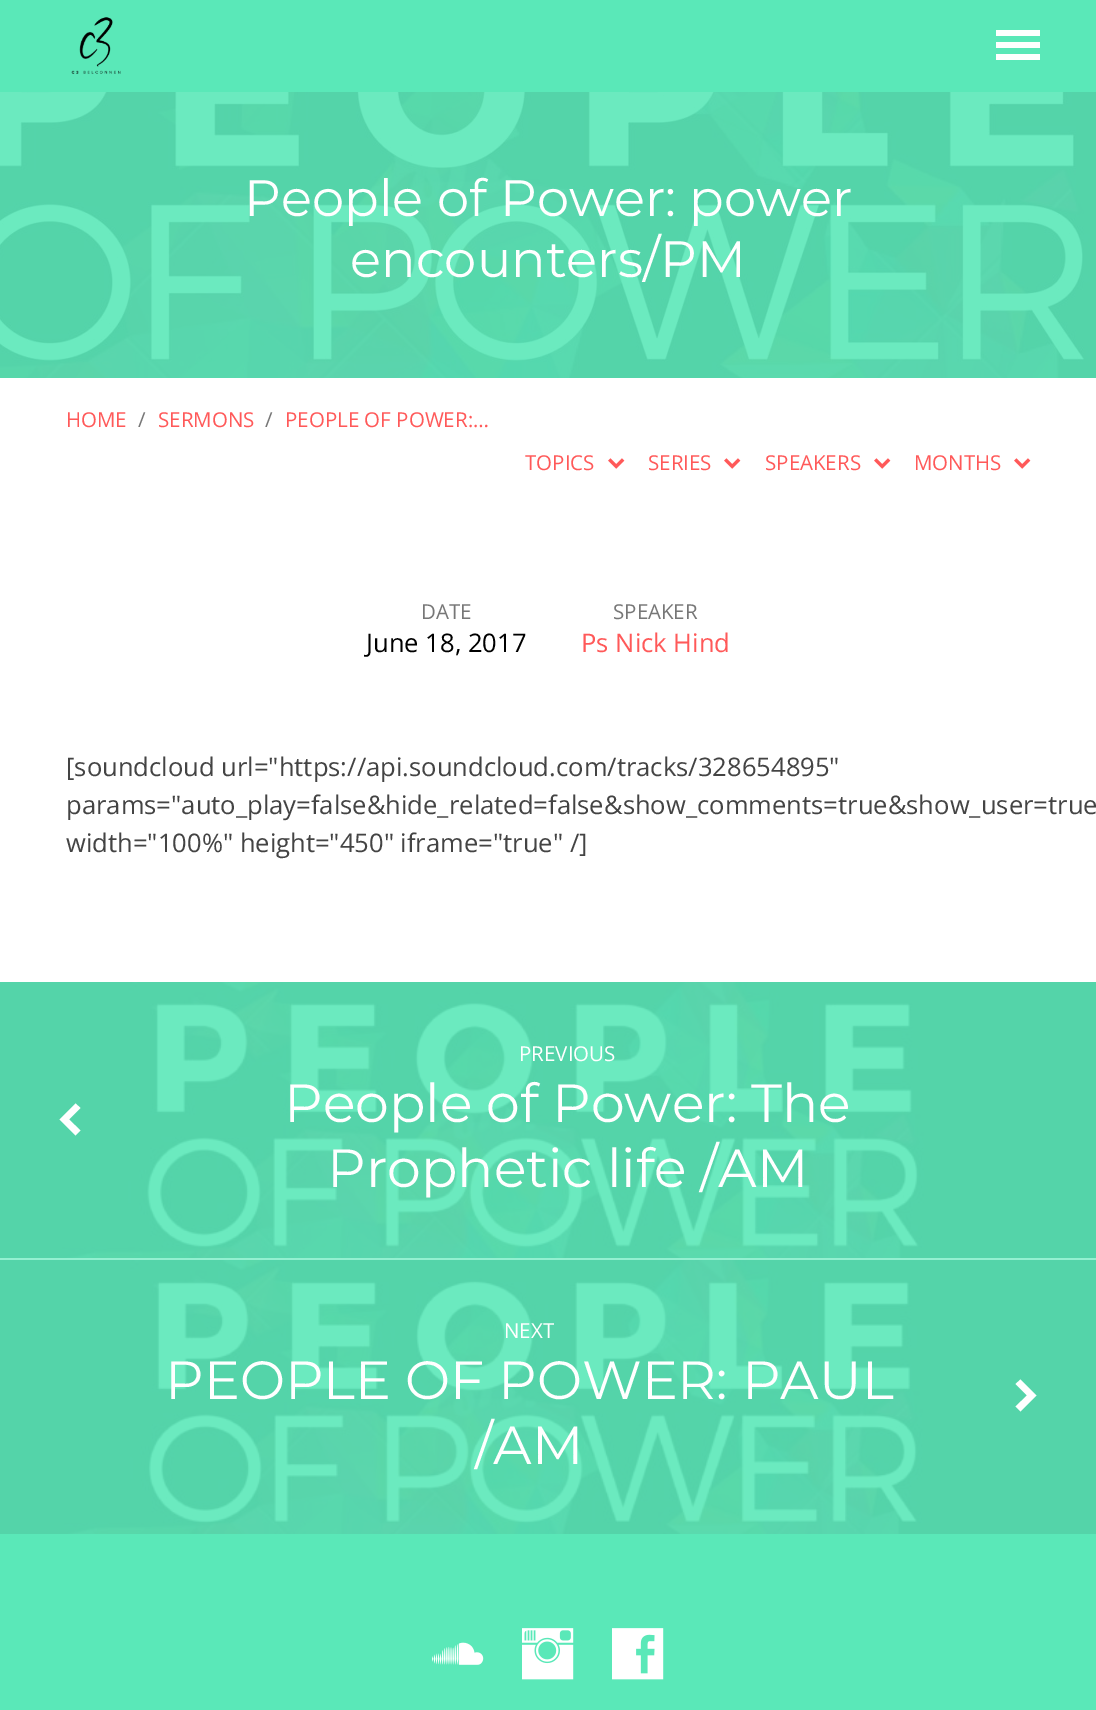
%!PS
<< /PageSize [1096 1710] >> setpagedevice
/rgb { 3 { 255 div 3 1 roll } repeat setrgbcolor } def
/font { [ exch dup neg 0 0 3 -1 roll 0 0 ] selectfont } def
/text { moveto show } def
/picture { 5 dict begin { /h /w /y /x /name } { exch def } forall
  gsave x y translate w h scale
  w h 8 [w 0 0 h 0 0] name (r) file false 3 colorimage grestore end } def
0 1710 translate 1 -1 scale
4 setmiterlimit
255 255 255 rgb
0 0 1096 1710 rectfill
90 232 184 rgb
0 0 1096 378 rectfill
(img_01.rgb) 71 17 50 57 picture
255 255 255 rgb
996 30 44 6 rectfill
996 42 44 6 rectfill
996 54 44 6 rectfill
(img_02.rgb) 0 92 1096 286 picture
(img_03.rgb) 608 458 17 11 picture
(img_03.rgb) 724 458 17 11 picture
(img_03.rgb) 874 458 17 11 picture
(img_03.rgb) 1014 458 17 11 picture
90 232 184 rgb
0 982 1096 728 rectfill
148 240 209 rgb
0 1258 1096 2 rectfill
(img_04.rgb) 0 982 1096 276 picture
255 255 255 rgb
59.5 1119.5 moveto 16 -16 rlineto 5 4.5 rlineto -11.5 11.5 rlineto 11.5 11 rlineto -5 5 rlineto closepath fill
(img_05.rgb) 0 1260 1096 274 picture
1036.5 1395.5 moveto -16 16 rlineto -5 -5 rlineto 11.5 -11 rlineto -11.5 -11.5 rlineto 5 -4.5 rlineto closepath fill
(img_06.rgb) 432 1642 52 23 picture
(img_07.rgb) 522 1628 52 52 picture
(img_08.rgb) 612 1628 52 52 picture
/Montserrat-Regular 51.25 font
(People of Power: power) 244 216 text
(encounters/PM) 350 277 text
/OpenSans-Regular 20.5 font
255 89 89 rgb
(HOME) 66 427 text
119 119 119 rgb
(/) 138 427 text
255 89 89 rgb
(SERMONS) 158 427 text
119 119 119 rgb
(/) 265 427 text
255 89 89 rgb
(PEOPLE OF POWER:…) 285 427 text
(TOPICS) 525 470 text
(SERIES) 648 470 text
(SPEAKERS) 765 470 text
(MONTHS) 914 470 text
119 119 119 rgb
(DATE) 421 619 text
/OpenSans-Regular 25.6 font
0 0 0 rgb
(June 18, 2017) 366 652 text
/OpenSans-Regular 20.5 font
119 119 119 rgb
(SPEAKER) 613 619 text
/OpenSans-Regular 25.6 font
255 89 89 rgb
(Ps Nick Hind) 581 652 text
68 68 68 rgb
([soundcloud url="https://api.soundcloud.com/tracks/328654895") 66 776 text
(params="auto_play=false&hide_related=false&show_comments=true&show_user=true) 66 814 text
(width="100%" height="450" iframe="true" /]) 66 852 text
/OpenSans-Regular 20.5 font
255 255 255 rgb
(PREVIOUS) 519 1061 text
/Montserrat-Regular 53.75 font
(People of Power: The) 284 1122 text
(Prophetic life /AM) 327 1187 text
/OpenSans-Regular 20.5 font
(NEXT) 504 1338 text
/Montserrat-Regular 53.75 font
(PEOPLE OF POWER: PAUL) 165 1399 text
(/AM) 475 1464 text
showpage
